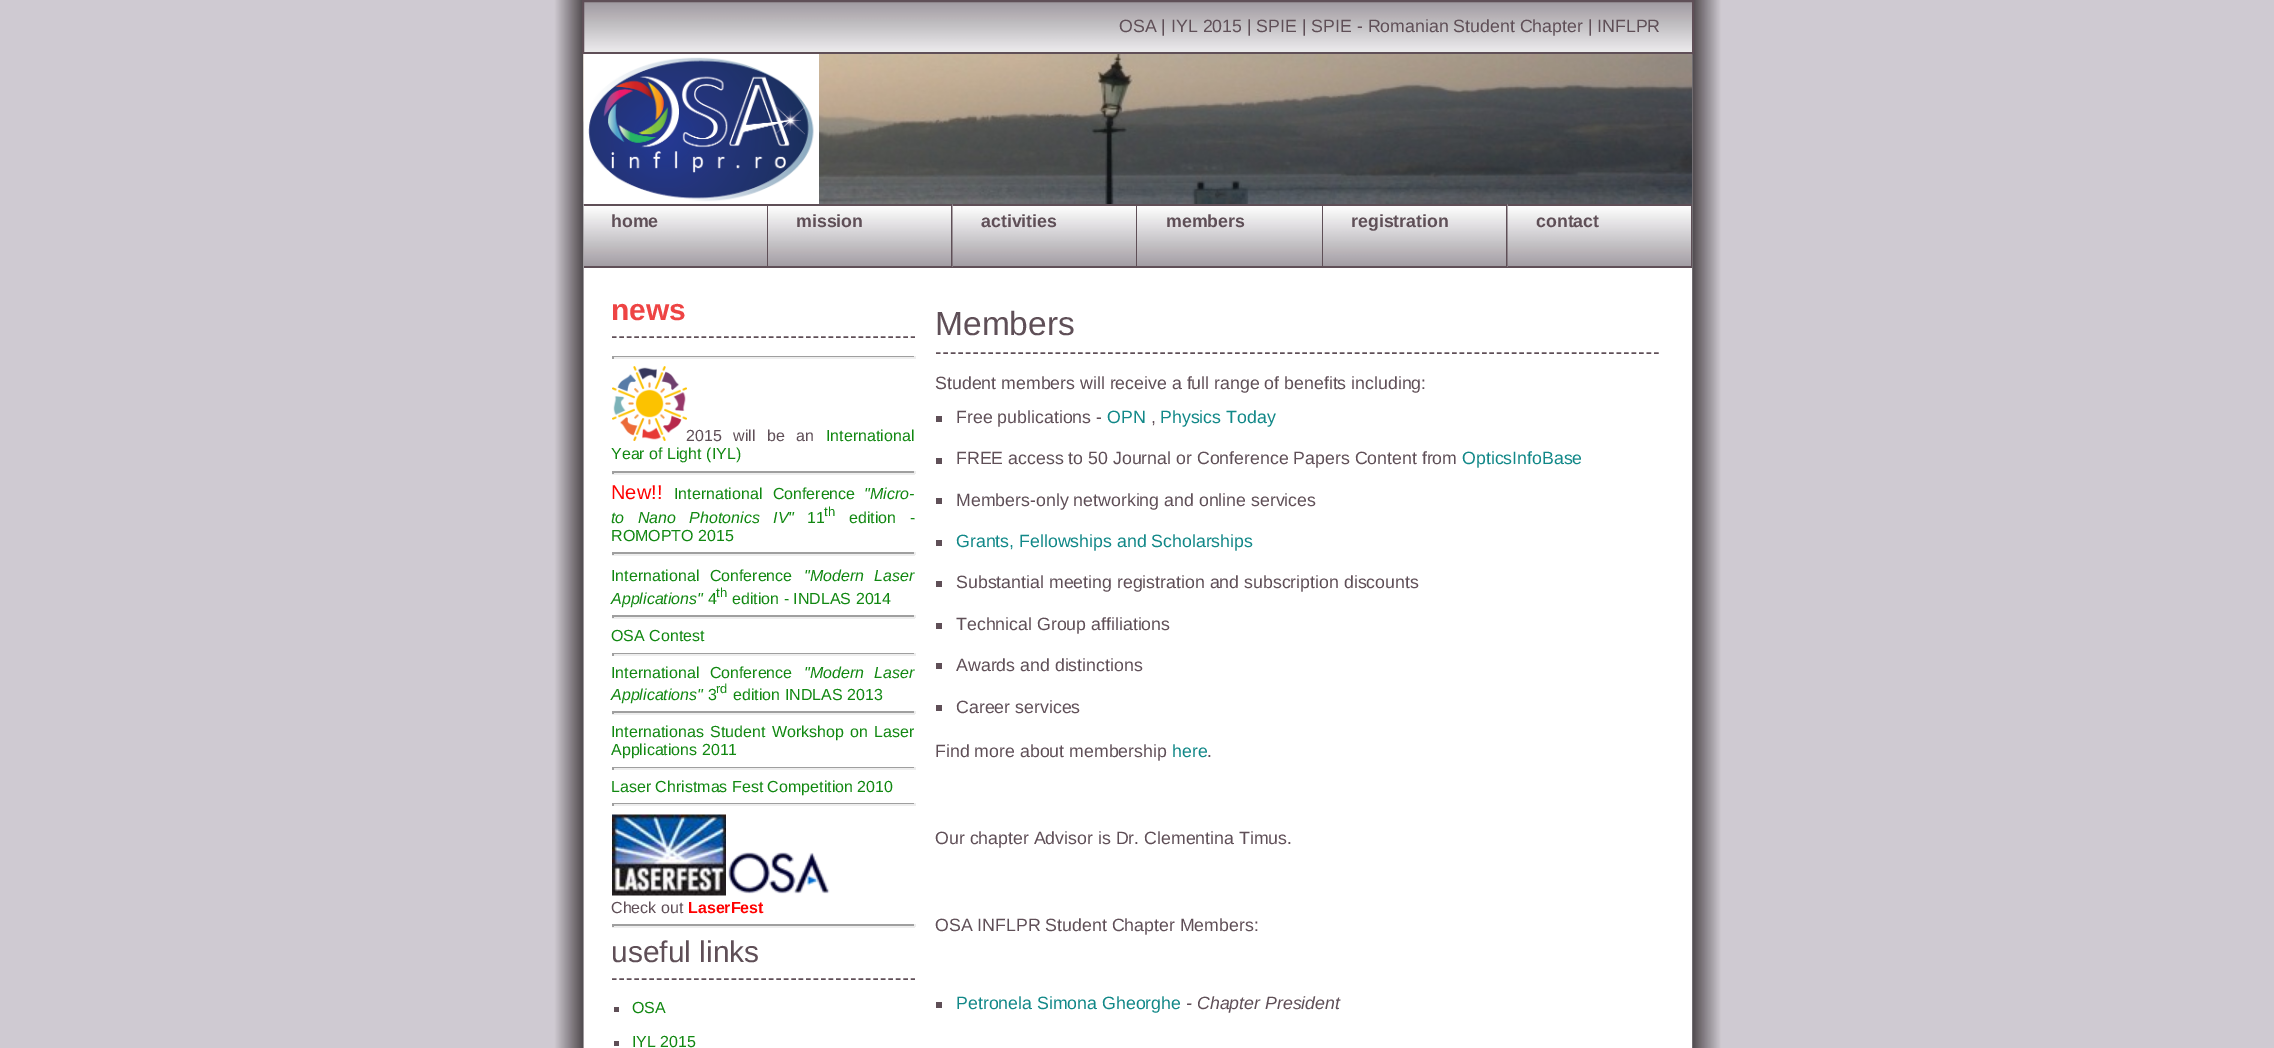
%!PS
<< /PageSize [2274 1048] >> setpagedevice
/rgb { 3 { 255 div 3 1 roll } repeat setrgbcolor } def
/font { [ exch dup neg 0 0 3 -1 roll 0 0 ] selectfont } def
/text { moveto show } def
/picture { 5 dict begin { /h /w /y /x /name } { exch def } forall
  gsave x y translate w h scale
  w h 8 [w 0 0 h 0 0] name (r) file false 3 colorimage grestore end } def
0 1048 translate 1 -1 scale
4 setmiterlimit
207 202 210 rgb
0 0 2274 1048 rectfill
(img_01.rgb) 554 0 1168 1048 picture
(img_02.rgb) 584 2 1108 50 picture
95 79 87 rgb
2 setlinewidth
583 1 1110 52 rectstroke
(img_03.rgb) 583 54 1109 150 picture
(img_04.rgb) 583 54 236 150 picture
255 255 255 rgb
1691 268 1 780 rectfill
(img_05.rgb) 583 204 184 63 picture
95 79 87 rgb
584 204 369 2 rectfill
767 204 1 63 rectfill
584 266 184 2 rectfill
(img_06.rgb) 768 206 183 60 picture
951 204 2 63 rectfill
768 266 185 2 rectfill
(img_07.rgb) 952 204 184 63 picture
953 204 555 2 rectfill
1136 204 1 63 rectfill
953 266 184 2 rectfill
(img_08.rgb) 1137 206 185 60 picture
1322 204 1 63 rectfill
1137 266 186 2 rectfill
(img_09.rgb) 1323 206 183 60 picture
1506 204 2 63 rectfill
1323 266 185 2 rectfill
(img_10.rgb) 1507 204 184 63 picture
1508 204 184 2 rectfill
1691 204 1 63 rectfill
1508 266 184 2 rectfill
1.5 setlinewidth
[4.5 2.97] 0 setdash
612 337 moveto 303 0 rlineto stroke
159 159 159 rgb
612 356 303 1 rectfill
238 238 238 rgb
914 356 2 3 rectfill
612 357 303 2 rectfill
159 159 159 rgb
612 356 2 3 rectfill
(img_11.rgb) 612 366 75 75 picture
612 471 303 2 rectfill
238 238 238 rgb
914 471 2 3 rectfill
612 473 303 2 rectfill
159 159 159 rgb
612 471 2 3 rectfill
612 552 303 2 rectfill
238 238 238 rgb
914 552 2 3 rectfill
612 554 303 2 rectfill
159 159 159 rgb
612 552 2 3 rectfill
612 615 303 2 rectfill
238 238 238 rgb
914 615 2 3 rectfill
612 617 303 2 rectfill
159 159 159 rgb
612 615 2 3 rectfill
612 653 303 1 rectfill
238 238 238 rgb
914 653 2 3 rectfill
612 654 303 2 rectfill
159 159 159 rgb
612 653 2 3 rectfill
612 711 303 2 rectfill
238 238 238 rgb
914 711 2 3 rectfill
612 713 303 2 rectfill
159 159 159 rgb
612 711 2 3 rectfill
612 767 303 1 rectfill
238 238 238 rgb
914 767 2 3 rectfill
612 768 303 2 rectfill
159 159 159 rgb
612 767 2 3 rectfill
612 803 303 1 rectfill
238 238 238 rgb
914 803 2 3 rectfill
612 804 303 2 rectfill
159 159 159 rgb
612 803 2 3 rectfill
(img_12.rgb) 612 814 114 82 picture
(img_13.rgb) 728 852 102 42 picture
612 924 303 2 rectfill
238 238 238 rgb
914 924 2 3 rectfill
612 926 303 2 rectfill
159 159 159 rgb
612 924 2 3 rectfill
95 79 87 rgb
612 979 moveto 303 0 rlineto stroke
614 1007 5 5 rectfill
614 1041 5 5 rectfill
[4.5 2.98] 0 setdash
936 353 moveto 723 0 rlineto stroke
936 416 6 6 rectfill
936 458 6 6 rectfill
936 498 6 6 rectfill
936 540 6 6 rectfill
936 581 6 6 rectfill
936 623 6 6 rectfill
936 663 6 6 rectfill
936 705 6 6 rectfill
936 1002 6 6 rectfill
/LiberationSans-Regular 17.75 font
(OSA | IYL 2015 | SPIE | SPIE - Romanian Student Chapter | INFLPR) 1119 32 text
/LiberationSans-Bold 17.75 font
(home) 611 227 text
(mission) 796 227 text
(activities) 981 227 text
(members) 1166 227 text
(registration) 1351 227 text
(contact) 1536 227 text
/LiberationSans-Bold 30 font
238 68 68 rgb
(news) 611 320 text
/LiberationSans-Regular 16 font
95 79 87 rgb
686 441 moveto 7 0 32 (2015 will be an) widthshow
17 136 17 rgb
(International) 826 441 text
(Year of Light \(IYL\)) 611 459 text
/LiberationSans-Regular 20 font
255 0 0 rgb
(New!!) 611 499 text
/LiberationSans-Regular 16 font
17 136 17 rgb
674 499 moveto 6 0 32 (International Conference) widthshow
/LiberationSans-Italic 16 font
("Micro-) 864 499 text
611 523 moveto 9 0 32 (to Nano Photonics IV") widthshow
/LiberationSans-Regular 16 font
(11) 807 523 text
/LiberationSans-Regular 13 font
(th) 824 516 text
/LiberationSans-Regular 16 font
849 523 moveto 9 0 32 (edition -) widthshow
(ROMOPTO 2015) 611 541 text
611 581 moveto 6 0 32 (International Conference) widthshow
/LiberationSans-Italic 16 font
804 581 moveto 6 0 32 ("Modern Laser) widthshow
(Applications") 611 604 text
/LiberationSans-Regular 16 font
(4) 708 604 text
/LiberationSans-Regular 13 font
(th) 716 597 text
/LiberationSans-Regular 16 font
(edition - INDLAS 2014) 732 604 text
(OSA Contest) 611 641 text
611 678 moveto 6 0 32 (International Conference) widthshow
/LiberationSans-Italic 16 font
804 678 moveto 6 0 32 ("Modern Laser) widthshow
(Applications") 611 700 text
/LiberationSans-Regular 16 font
(3) 708 700 text
/LiberationSans-Regular 13 font
(rd) 716 693 text
/LiberationSans-Regular 16 font
(edition INDLAS 2013) 733 700 text
611 737 moveto 2 0 32 (Internationas Student Workshop on Laser) widthshow
(Applications 2011) 611 755 text
(Laser Christmas Fest Competition 2010) 611 792 text
95 79 87 rgb
(Check out) 611 913 text
/LiberationSans-Bold 16 font
255 0 0 rgb
(LaserFest) 688 913 text
/LiberationSans-Regular 30 font
95 79 87 rgb
(useful links) 611 962 text
/LiberationSans-Regular 16 font
17 136 17 rgb
(OSA) 632 1013 text
(IYL 2015) 632 1047 text
/LiberationSans-Regular 33.5 font
95 79 87 rgb
(Members) 935 335 text
/LiberationSans-Regular 17.75 font
(Student members will receive a full range of benefits including:) 935 389 text
(Free publications -) 956 423 text
17 136 136 rgb
(OPN) 1107 423 text
(Physics Today) 1160 423 text
95 79 87 rgb
(,) 1151 423 text
(FREE access to 50 Journal or Conference Papers Content from) 956 464 text
17 136 136 rgb
(OpticsInfoBase) 1462 464 text
95 79 87 rgb
(Members-only networking and online services) 956 506 text
17 136 136 rgb
(Grants, Fellowships and Scholarships) 956 547 text
95 79 87 rgb
(Substantial meeting registration and subscription discounts) 956 588 text
(Technical Group affiliations) 956 630 text
(Awards and distinctions) 956 671 text
(Career services) 956 713 text
(Find more about membership) 935 757 text
17 136 136 rgb
(here) 1172 757 text
95 79 87 rgb
(.) 1207 757 text
(Our chapter Advisor is Dr. Clementina Timus.) 935 844 text
(OSA INFLPR Student Chapter Members:) 935 931 text
17 136 136 rgb
(Petronela Simona Gheorghe) 956 1009 text
/LiberationSans-Italic 17.75 font
95 79 87 rgb
(- Chapter President) 1186 1009 text
showpage
